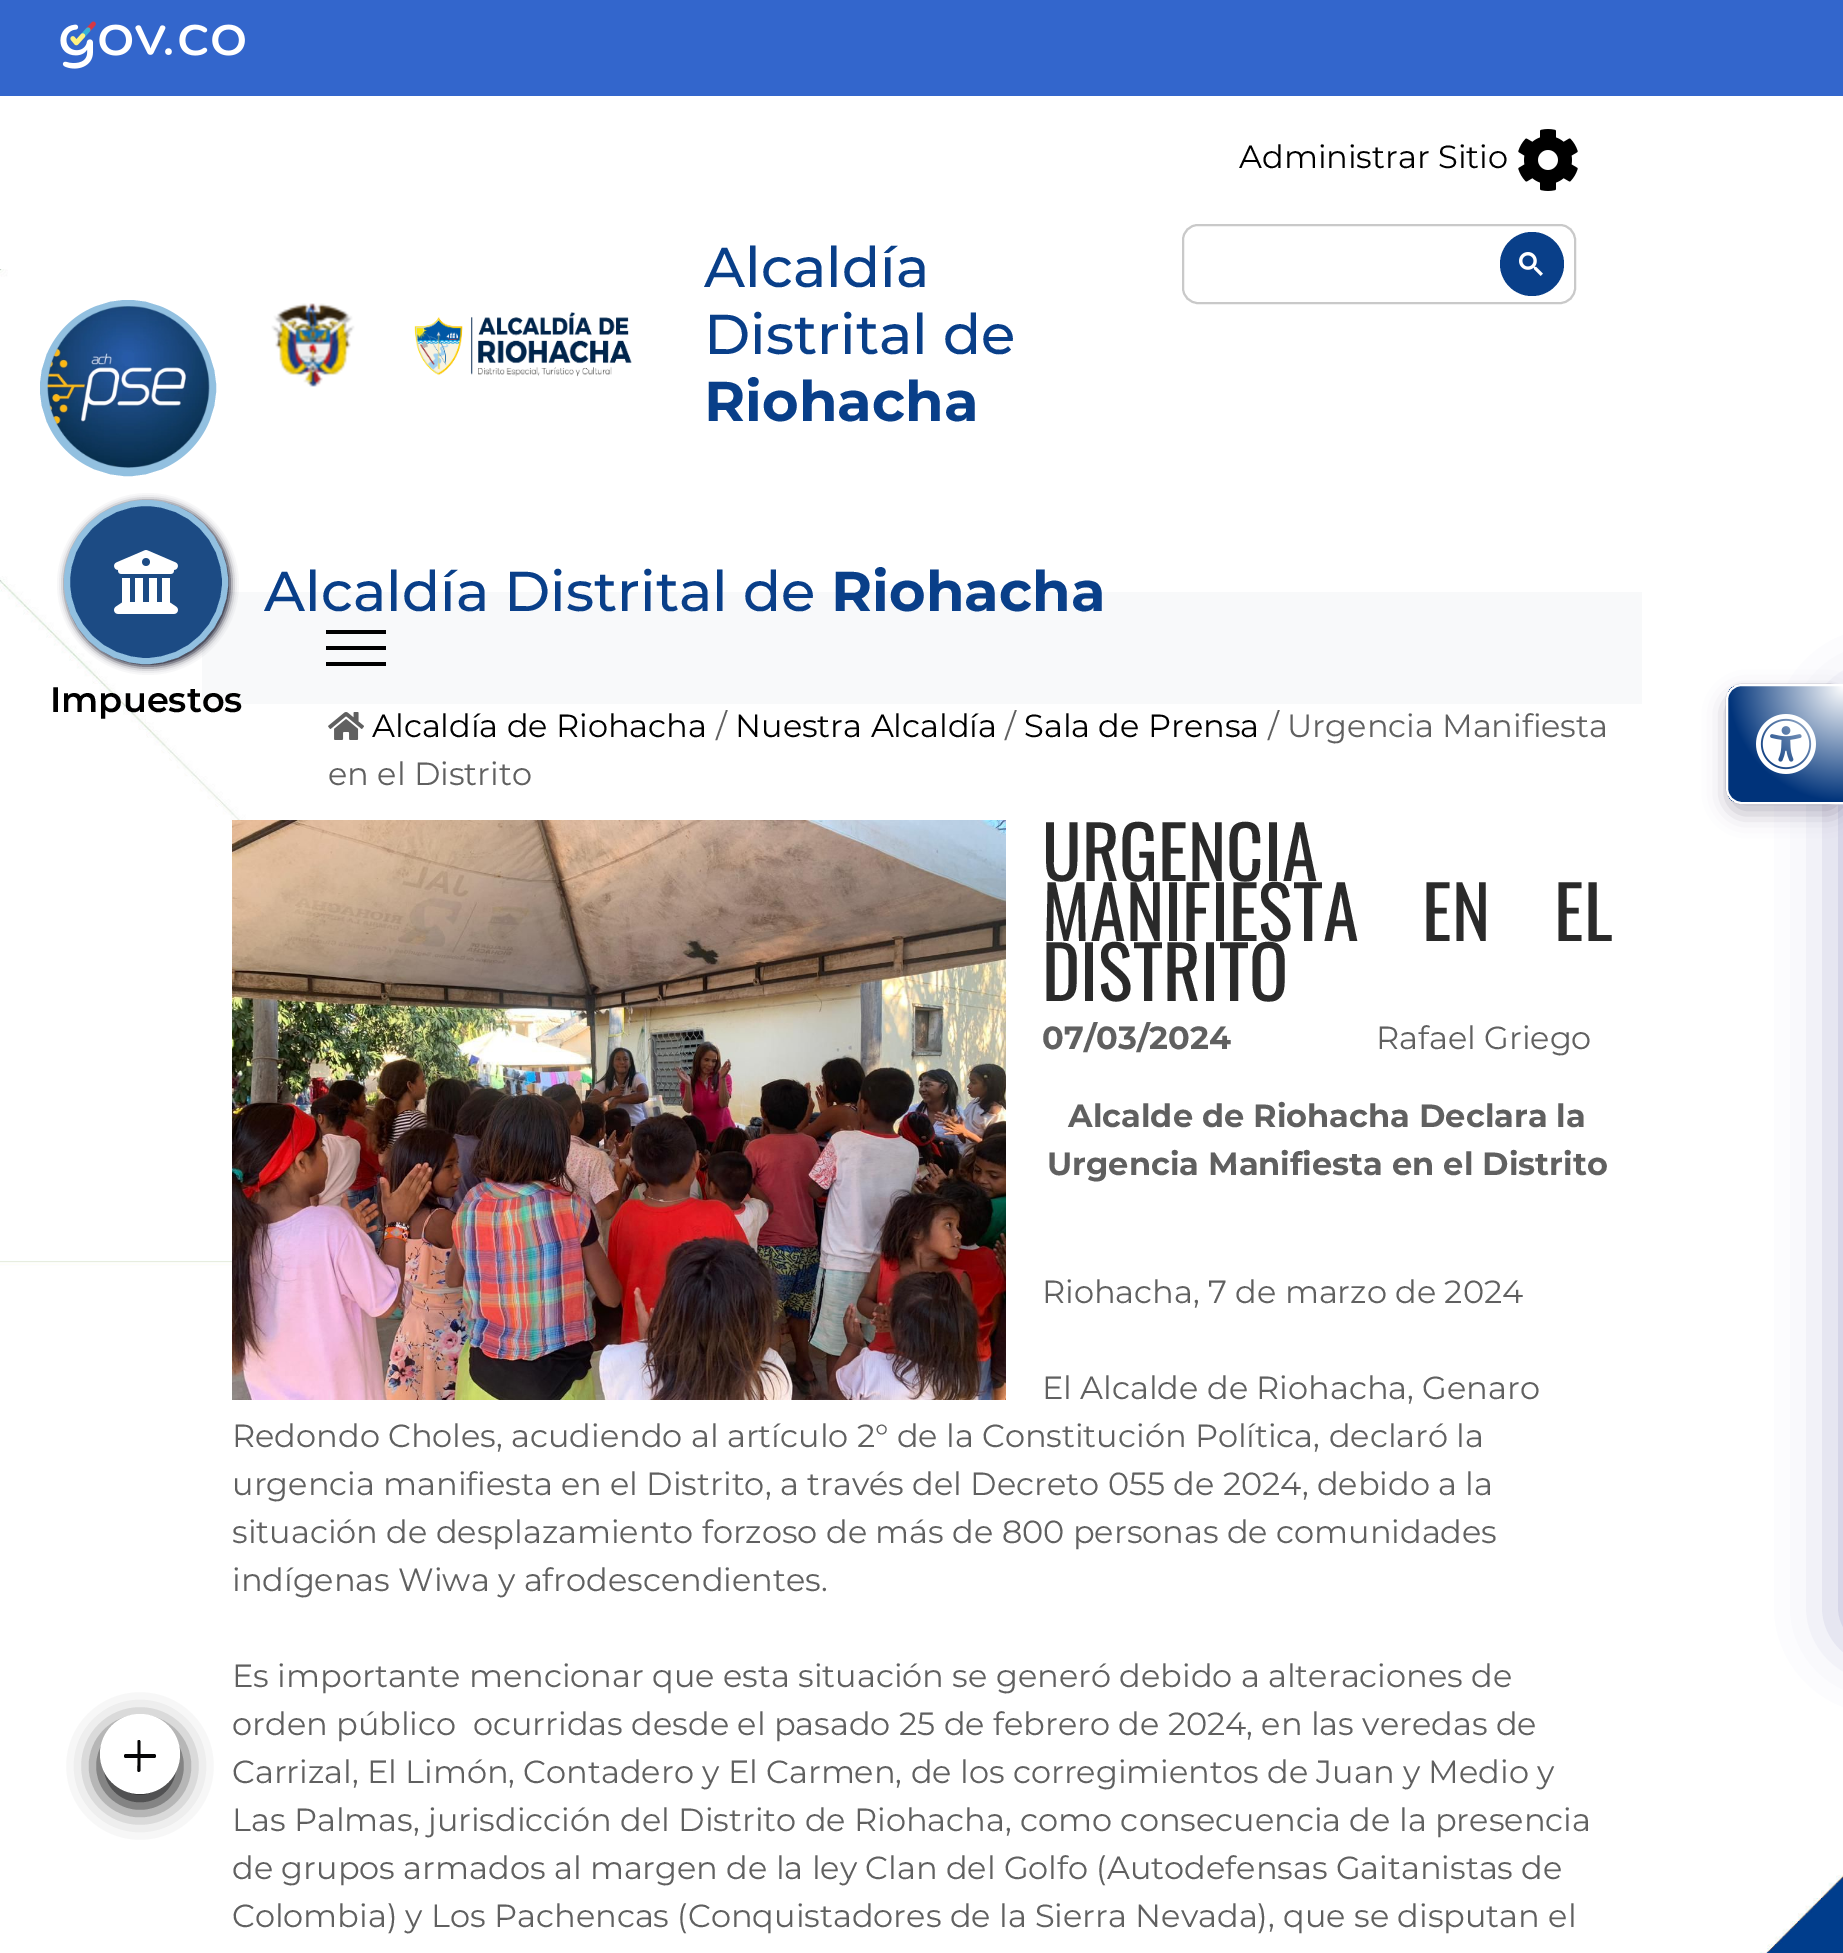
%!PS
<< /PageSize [1843 1953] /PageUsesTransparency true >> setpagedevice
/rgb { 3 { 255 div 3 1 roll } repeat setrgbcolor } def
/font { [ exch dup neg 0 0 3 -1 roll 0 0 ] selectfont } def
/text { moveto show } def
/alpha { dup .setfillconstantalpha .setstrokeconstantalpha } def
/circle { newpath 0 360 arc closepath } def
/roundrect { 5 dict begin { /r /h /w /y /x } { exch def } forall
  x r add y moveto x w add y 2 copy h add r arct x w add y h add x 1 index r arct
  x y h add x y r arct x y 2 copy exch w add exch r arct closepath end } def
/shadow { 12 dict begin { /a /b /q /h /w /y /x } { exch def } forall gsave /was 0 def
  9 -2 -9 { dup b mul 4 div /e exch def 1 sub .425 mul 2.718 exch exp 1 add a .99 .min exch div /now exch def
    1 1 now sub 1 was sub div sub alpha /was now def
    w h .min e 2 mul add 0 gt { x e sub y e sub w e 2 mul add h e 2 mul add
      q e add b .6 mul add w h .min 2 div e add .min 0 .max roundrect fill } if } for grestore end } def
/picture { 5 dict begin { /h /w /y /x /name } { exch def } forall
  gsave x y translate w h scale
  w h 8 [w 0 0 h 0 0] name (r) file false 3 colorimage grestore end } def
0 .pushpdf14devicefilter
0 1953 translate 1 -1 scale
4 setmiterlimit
255 255 255 rgb
0 0 1843 1953 rectfill
(img_01.rgb) 0 269 1843 1684 picture
51 102 204 rgb
0 0 1843 96 rectfill
(img_02.rgb) 60 21 185 48 picture
(img_03.rgb) 1518 129 60 62 picture
201 201 201 rgb
2 setlinewidth
1183 225 392 78 15 roundrect stroke
9 63 137 rgb
1532 264 32 circle fill
(img_04.rgb) 1519 252 24 24 picture
(img_05.rgb) 271 303 84 84 picture
(img_06.rgb) 414 312 218 65 picture
248 249 250 rgb
202 592 1440 112 rectfill
0 0 0 rgb
326 630 60 4 rectfill
326 646 60 4 rectfill
326 662 60 4 rectfill
146 192 224 rgb
10 setlinewidth
128 388 83 circle stroke
(img_07.rgb) 47 306 163 162 picture
2 2 24 rgb
66 502 164 164 82 4 1 shadow
28 75 132 rgb
146 582 79 circle gsave fill grestore
146 192 224 rgb
6 setlinewidth
stroke
(img_08.rgb) 114 550 64 64 picture
5 5 6 rgb
100 1726 80 80 40 15 1 shadow
255 255 255 rgb
140 1754 40 circle fill
5 5 6 rgb
140.5 1741.5 moveto 0 29 rlineto -0.5 1 rlineto -1.5 0.5 rlineto -2 -0.5 -1 -6 -1 -6.5 rcurveto 0 -24.5 rlineto 0.5 -1 2 -1.5 2.5 -0.5 rcurveto closepath fill
124 1754 32 4 2 roundrect fill
(img_09.rgb) 328 712 36 28 picture
(img_10.rgb) 232 820 774 580 picture
31 38 135 rgb
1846 700 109 942 16 32 0.37 shadow
45 35 66 rgb
1726 694 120 120 16 11 0.3 shadow
1726 684 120 120 16 0.5 0.4 shadow
gsave
1742 684 moveto 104 0 rlineto 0 120 rlineto -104 0 rlineto -9 0 -16 -7 -16 -16 rcurveto 0 -88 rlineto 0 -9 7 -16 16 -16 rcurveto closepath clip newpath
gsave 1728 686 moveto 115 0 rlineto 0 116 rlineto -115 0 rlineto closepath clip newpath 1844 686 translate 116 116 scale
<< /ShadingType 3 /ColorSpace /DeviceRGB /Coords [0 0 0 0 0 1] /Extend [true true] /Function << /FunctionType 2 /Domain [0 1] /C0 [1 1 1] /C1 [0 0.2 0.478] /N 1 >> >> shfill grestore
grestore
255 255 255 rgb
2 setlinewidth
1742 685 moveto 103 0 rlineto 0 118 rlineto -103 0 rlineto -8.5 0 -15 -6.5 -15 -15 rcurveto 0 -88 rlineto 0 -8.5 6.5 -15 15 -15 rcurveto closepath stroke
(img_11.rgb) 1756 714 60 60 picture
/Montserrat-Regular 32 font
0 0 0 rgb
(Administrar Sitio) 1239 168 text
/Montserrat-Medium 56 font
9 63 137 rgb
(Alcaldía) 704 287 text
(Distrital de) 704 354 text
/Montserrat-Bold 56 font
(Riohacha) 704 421 text
/Montserrat-Medium 56 font
(Alcaldía Distrital de) 264 611 text
/Montserrat-Bold 56 font
(Riohacha) 831 611 text
/Montserrat-SemiBold 35.25 font
0 0 0 rgb
(Impuestos) 50 712 text
/Montserrat-Regular 32 font
(Alcaldía de Riohacha) 372 737 text
96 96 96 rgb
(/) 716 737 text
0 0 0 rgb
(Nuestra Alcaldía) 735 737 text
96 96 96 rgb
(/) 1005 737 text
0 0 0 rgb
(Sala de Prensa) 1024 737 text
96 96 96 rgb
(/ Urgencia Manifiesta) 1268 737 text
(en el Distrito) 328 785 text
/Oswald-Regular 72.75 font
42 42 42 rgb
(URGENCIA) 1042 881 text
1042 941 moveto 47 0 32 (MANIFIESTA EN EL) widthshow
(DISTRITO) 1042 1001 text
/Montserrat-Bold 32 font
96 96 96 rgb
(07/03/2024) 1042 1049 text
/Montserrat-Regular 32 font
(Rafael Griego) 1376 1049 text
/Montserrat-Bold 32 font
(Alcalde de Riohacha Declara la) 1068 1127 text
(Urgencia Manifiesta en el Distrito) 1047 1175 text
/Montserrat-Regular 32 font
(Riohacha, 7 de marzo de 2024) 1042 1303 text
(El Alcalde de Riohacha, Genaro) 1042 1399 text
(Redondo Choles, acudiendo al artículo 2° de la Constitución Política, declaró la) 232 1447 text
(urgencia manifiesta en el Distrito, a través del Decreto 055 de 2024, debido a la) 232 1495 text
(situación de desplazamiento forzoso de más de 800 personas de comunidades) 232 1543 text
(indígenas Wiwa y afrodescendientes.) 232 1591 text
(Es importante mencionar que esta situación se generó debido a alteraciones de) 232 1687 text
(orden público  ocurridas desde el pasado 25 de febrero de 2024, en las veredas de) 232 1735 text
(Carrizal, El Limón, Contadero y El Carmen, de los corregimientos de Juan y Medio y) 232 1783 text
(Las Palmas, jurisdicción del Distrito de Riohacha, como consecuencia de la presencia) 232 1831 text
(de grupos armados al margen de la ley Clan del Golfo \(Autodefensas Gaitanistas de) 232 1879 text
(Colombia\) y Los Pachencas \(Conquistadores de la Sierra Nevada\), que se disputan el) 232 1927 text
.poppdf14devicefilter showpage
